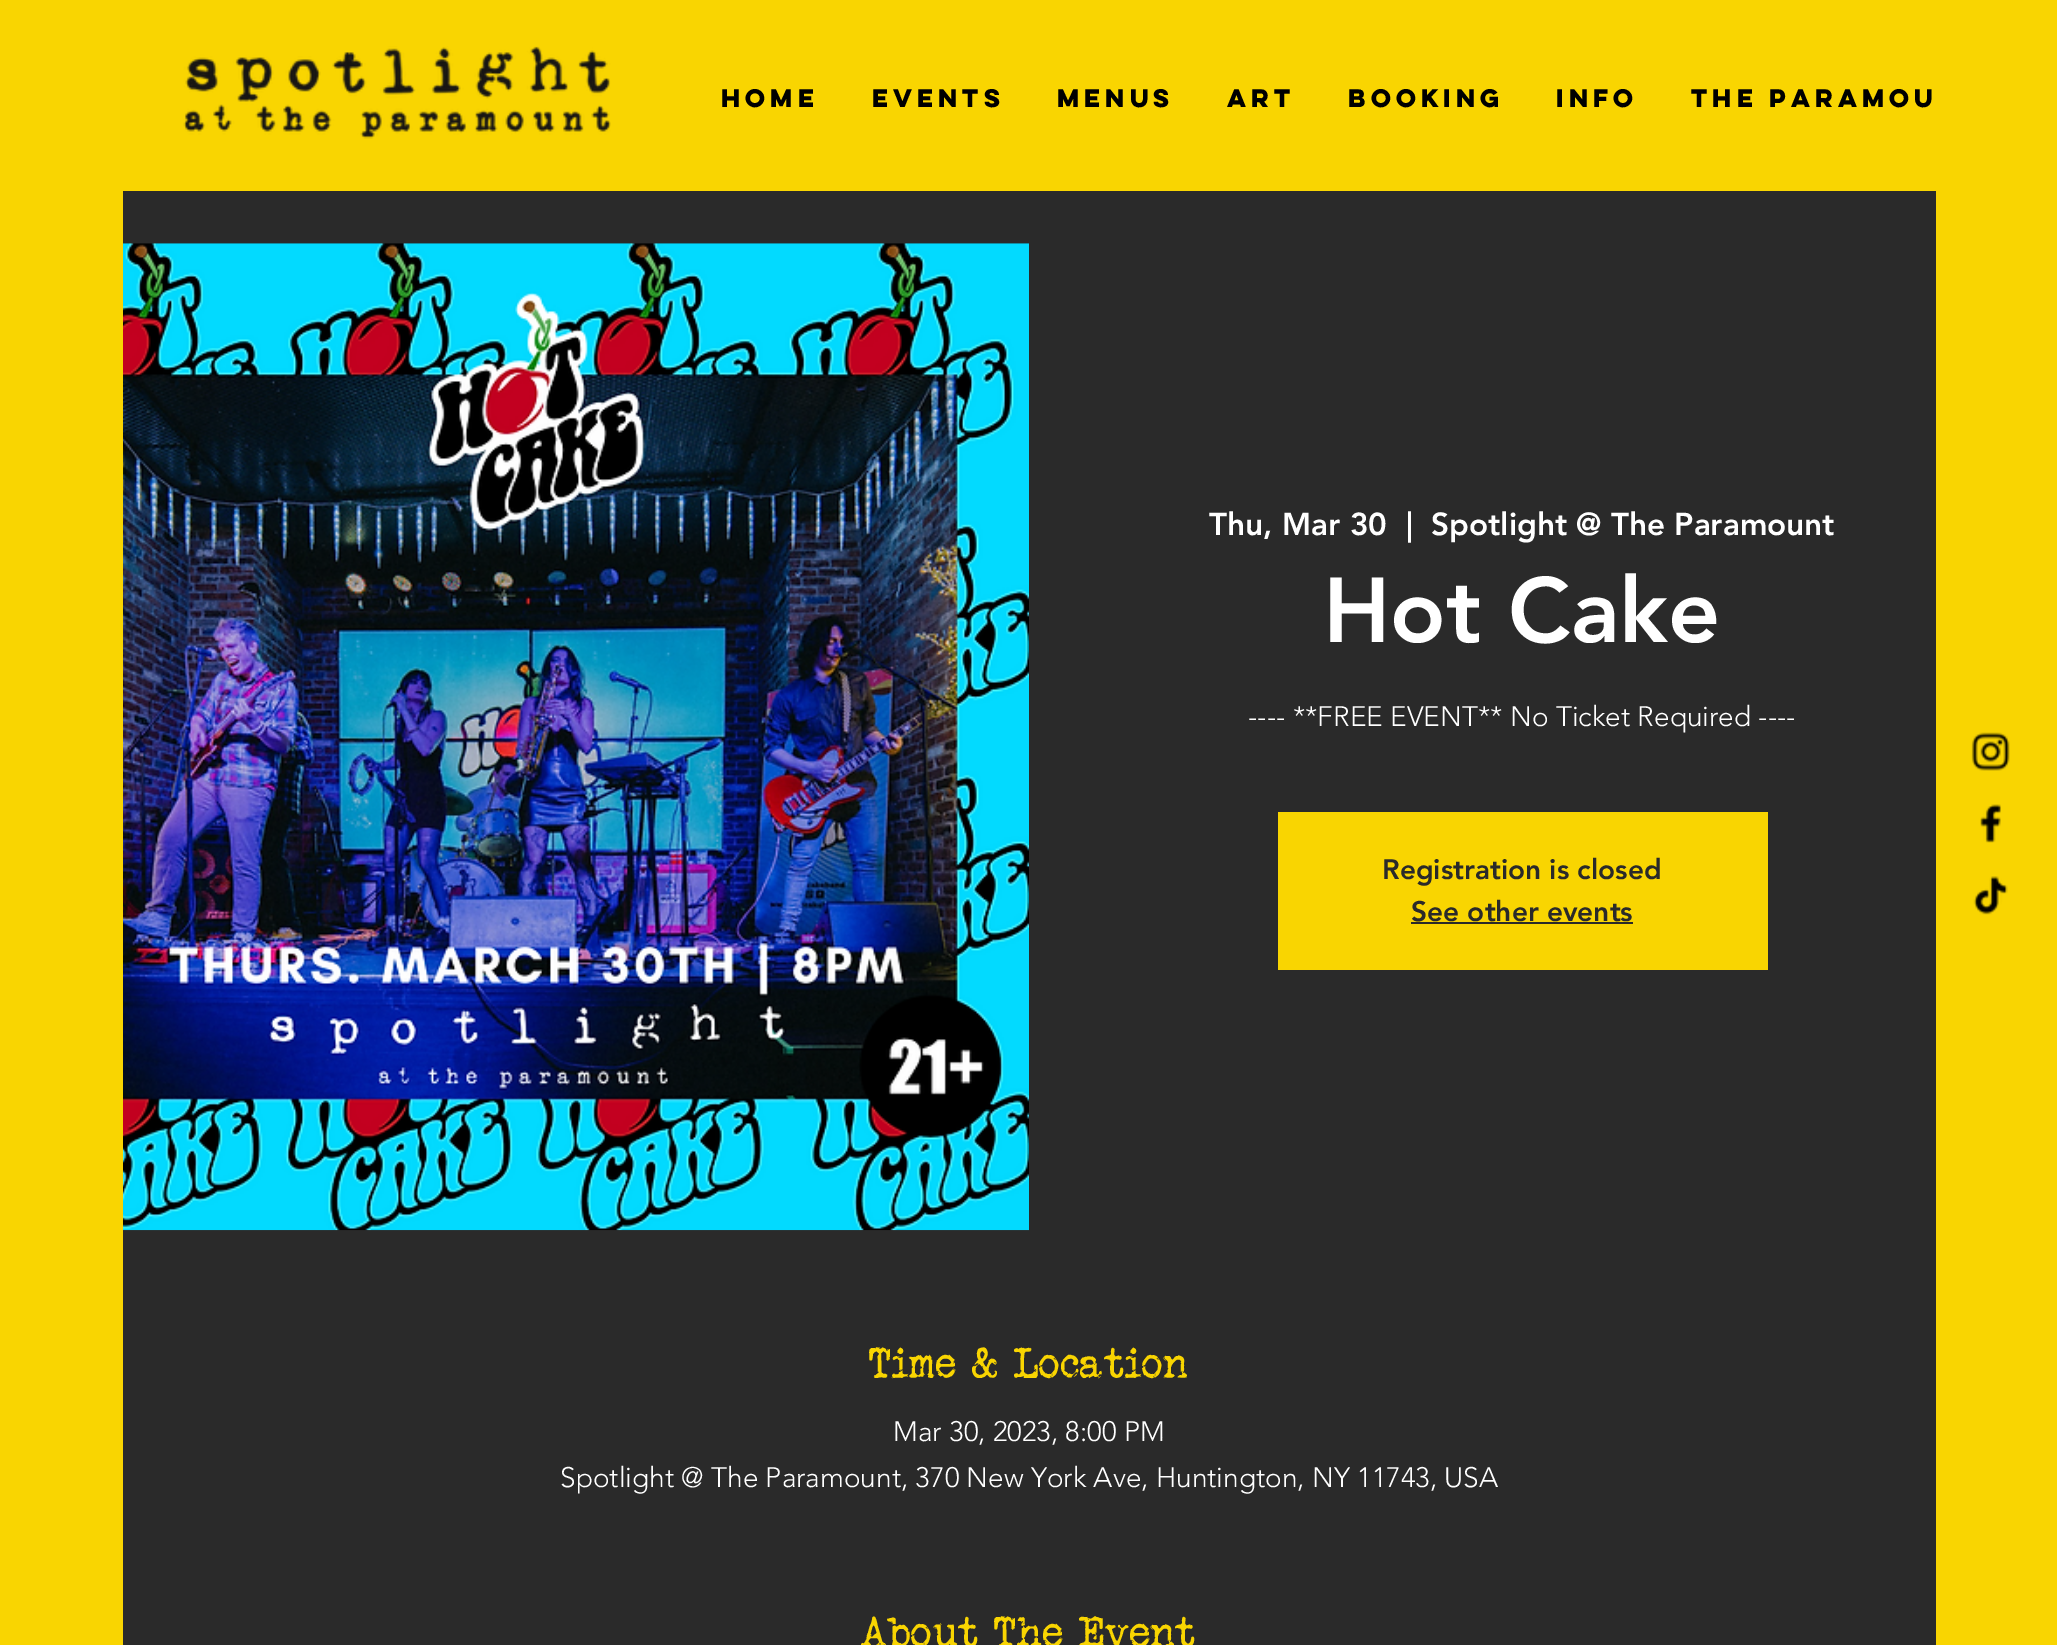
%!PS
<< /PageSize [2057 1645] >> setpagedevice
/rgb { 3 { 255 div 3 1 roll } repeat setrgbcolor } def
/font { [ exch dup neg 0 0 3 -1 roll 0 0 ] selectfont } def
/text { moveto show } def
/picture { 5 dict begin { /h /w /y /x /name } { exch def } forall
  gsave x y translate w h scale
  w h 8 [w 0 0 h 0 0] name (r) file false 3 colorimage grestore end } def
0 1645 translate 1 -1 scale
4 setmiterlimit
42 42 42 rgb
0 0 2057 1645 rectfill
249 213 1 rgb
0 0 123 1645 rectfill
123 0 1813 191 rectfill
(img_01.rgb) 183 46 428 93 picture
1936 0 121 1645 rectfill
(img_02.rgb) 1971 732 39 39 picture
(img_03.rgb) 1980 804 21 39 picture
(img_04.rgb) 1973 876 35 39 picture
(img_05.rgb) 123 243 906 988 picture
1278 812 490 158 rectfill
42 42 42 rgb
1411 922 222 2 rectfill
/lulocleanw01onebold-Bold 22.75 font
0 0 0 rgb
(Home) 721 107 text
(Events) 872 107 text
(Menus) 1057 107 text
(Art) 1227 107 text
(Booking) 1348 107 text
(Info) 1556 107 text
(The Paramou) 1691 107 text
/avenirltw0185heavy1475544-Black 31.5 font
255 255 255 rgb
(Thu, Mar 30) 1209 535 text
(|) 1406 535 text
(Spotlight @ The Paramount) 1431 535 text
/avenirltw0185heavy1475544-Black 91 font
(Hot Cake) 1323 642 text
/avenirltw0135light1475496-Light 28 font
(---- **FREE EVENT** No Ticket Required ----) 1248 726 text
/avenirltw0185heavy1475544-Black 28 font
42 42 42 rgb
(Registration is closed) 1382 879 text
(See other events) 1411 921 text
/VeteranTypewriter-Regular 43.75 font
249 213 1 rgb
(Time & Location) 869 1378 text
/avenirltw0135light1475496-Light 28 font
255 255 255 rgb
(Mar 30, 2023, 8:00 PM) 893 1441 text
(Spotlight @ The Paramount, 370 New York Ave, Huntington, NY 11743, USA) 560 1487 text
/VeteranTypewriter-Regular 43.75 font
249 213 1 rgb
(About The Event) 861 1647 text
showpage
